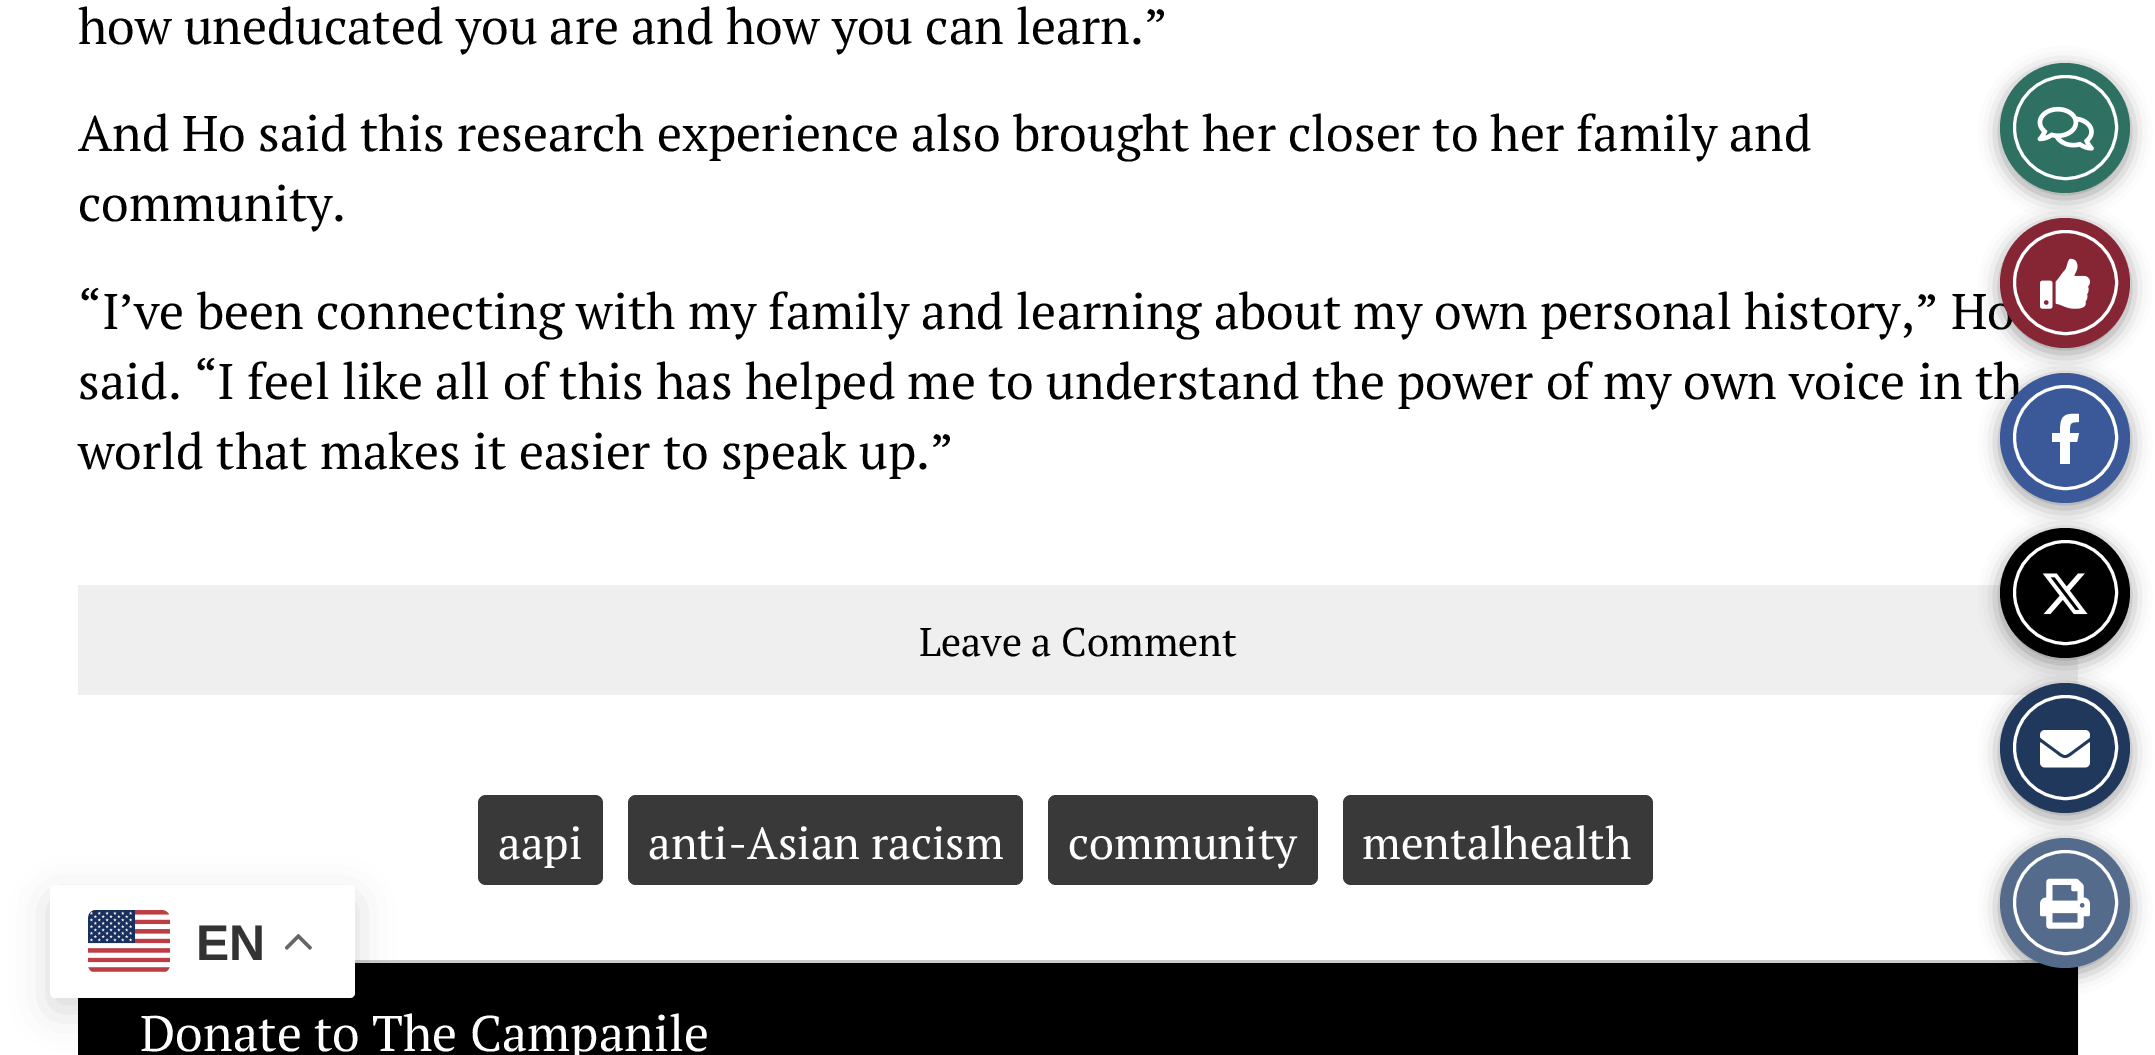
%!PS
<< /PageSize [2155 1055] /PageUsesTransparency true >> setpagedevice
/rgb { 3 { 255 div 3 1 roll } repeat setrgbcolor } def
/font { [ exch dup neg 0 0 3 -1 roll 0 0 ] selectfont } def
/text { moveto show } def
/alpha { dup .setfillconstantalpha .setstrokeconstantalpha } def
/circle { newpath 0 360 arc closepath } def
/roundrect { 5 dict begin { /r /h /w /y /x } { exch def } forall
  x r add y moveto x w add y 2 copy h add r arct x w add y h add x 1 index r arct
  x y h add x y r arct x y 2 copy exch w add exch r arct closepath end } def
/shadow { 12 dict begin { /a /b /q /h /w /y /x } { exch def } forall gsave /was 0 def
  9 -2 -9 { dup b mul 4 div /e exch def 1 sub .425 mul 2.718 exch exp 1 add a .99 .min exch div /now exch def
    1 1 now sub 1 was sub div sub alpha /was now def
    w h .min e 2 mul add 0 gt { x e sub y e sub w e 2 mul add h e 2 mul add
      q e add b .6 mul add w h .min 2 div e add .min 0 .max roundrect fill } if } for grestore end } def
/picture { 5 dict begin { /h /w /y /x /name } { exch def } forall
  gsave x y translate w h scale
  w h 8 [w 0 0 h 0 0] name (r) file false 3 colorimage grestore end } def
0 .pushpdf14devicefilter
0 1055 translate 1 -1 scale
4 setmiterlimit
255 255 255 rgb
0 0 2155 1055 rectfill
0 0 0 rgb
2000 68 130 130 65 10 0.4 shadow
46 112 97 rgb
2065 128 65 circle fill
255 255 255 rgb
3 setlinewidth
2065.5 127.5 51 circle stroke
(img_01.rgb) 2037 106 57 45 picture
0 0 0 rgb
2000 223 130 130 65 10 0.4 shadow
239 239 239 rgb
78 585 2000 110 rectfill
57 57 57 rgb
478 795 125 90 8 roundrect fill
628 795 395 90 8 roundrect fill
1048 795 270 90 8 roundrect fill
1343 795 310 90 8 roundrect fill
204 204 204 rgb
79.5 961.5 1997 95 rectstroke
0 0 0 rgb
78 963 2000 92 rectfill
50 898 305 112 5 19 0.15 shadow
255 255 255 rgb
50 885 305 113 5 roundrect fill
(img_06.rgb) 88 910 82 62 picture
(img_07.rgb) 285 933 27 17 picture
/PTSerif-Regular 50 font
0 0 0 rgb
(how uneducated you are and how you can learn.”) 78 44 text
(And Ho said this research experience also brought her closer to her family and) 78 151 text
(community.) 78 221 text
(“I’ve been connecting with my family and learning about my own personal history,” Ho) 78 329 text
(said. “I feel like all of this has helped me to understand the power of my own voice in th) 78 399 text
(world that makes it easier to speak up.”) 78 469 text
134 38 53 rgb
2065 283 65 circle fill
255 255 255 rgb
2065.5 282.5 51 circle stroke
(img_02.rgb) 2040 258 50 51 picture
0 0 0 rgb
2000 378 130 130 65 10 0.4 shadow
59 89 152 rgb
2065 438 65 circle fill
255 255 255 rgb
2065.5 437.5 51 circle stroke
2077 442 moveto -7 0 rlineto 0 22 rlineto -10 0 rlineto 0 -22 rlineto -8 0 rlineto 0 -9 rlineto 8 0 rlineto 0 -17 3 -20 19 -19 rcurveto 0 8 rlineto -10 0 -9 2 -9 11 rcurveto 9 0 rlineto closepath fill
0 0 0 rgb
2000 533 130 130 65 10 0.4 shadow
2065 593 65 circle fill
255 255 255 rgb
2065.5 592.5 51 circle stroke
(img_03.rgb) 2042 573 46 42 picture
0 0 0 rgb
2000 688 130 130 65 10 0.4 shadow
31 56 92 rgb
2065 748 65 circle fill
255 255 255 rgb
2065.5 747.5 51 circle stroke
(img_04.rgb) 2040 730 50 38 picture
0 0 0 rgb
2000 843 130 130 65 10 0.4 shadow
84 107 139 rgb
2065 903 65 circle fill
255 255 255 rgb
2065.5 902.5 51 circle stroke
(img_05.rgb) 2040 878 50 51 picture
/PTSerif-Regular 40 font
0 0 0 rgb
(Leave a Comment) 919 656 text
/PTSerif-Regular 45 font
255 255 255 rgb
(aapi) 498 859 text
(anti-Asian racism) 648 859 text
(community) 1068 859 text
(mentalhealth) 1362 859 text
/PTSerif-Regular 50 font
(Donate to The Campanile) 140 1051 text
/LiberationSans-Bold 50 font
51 51 51 rgb
(EN) 196 960 text
.poppdf14devicefilter showpage
